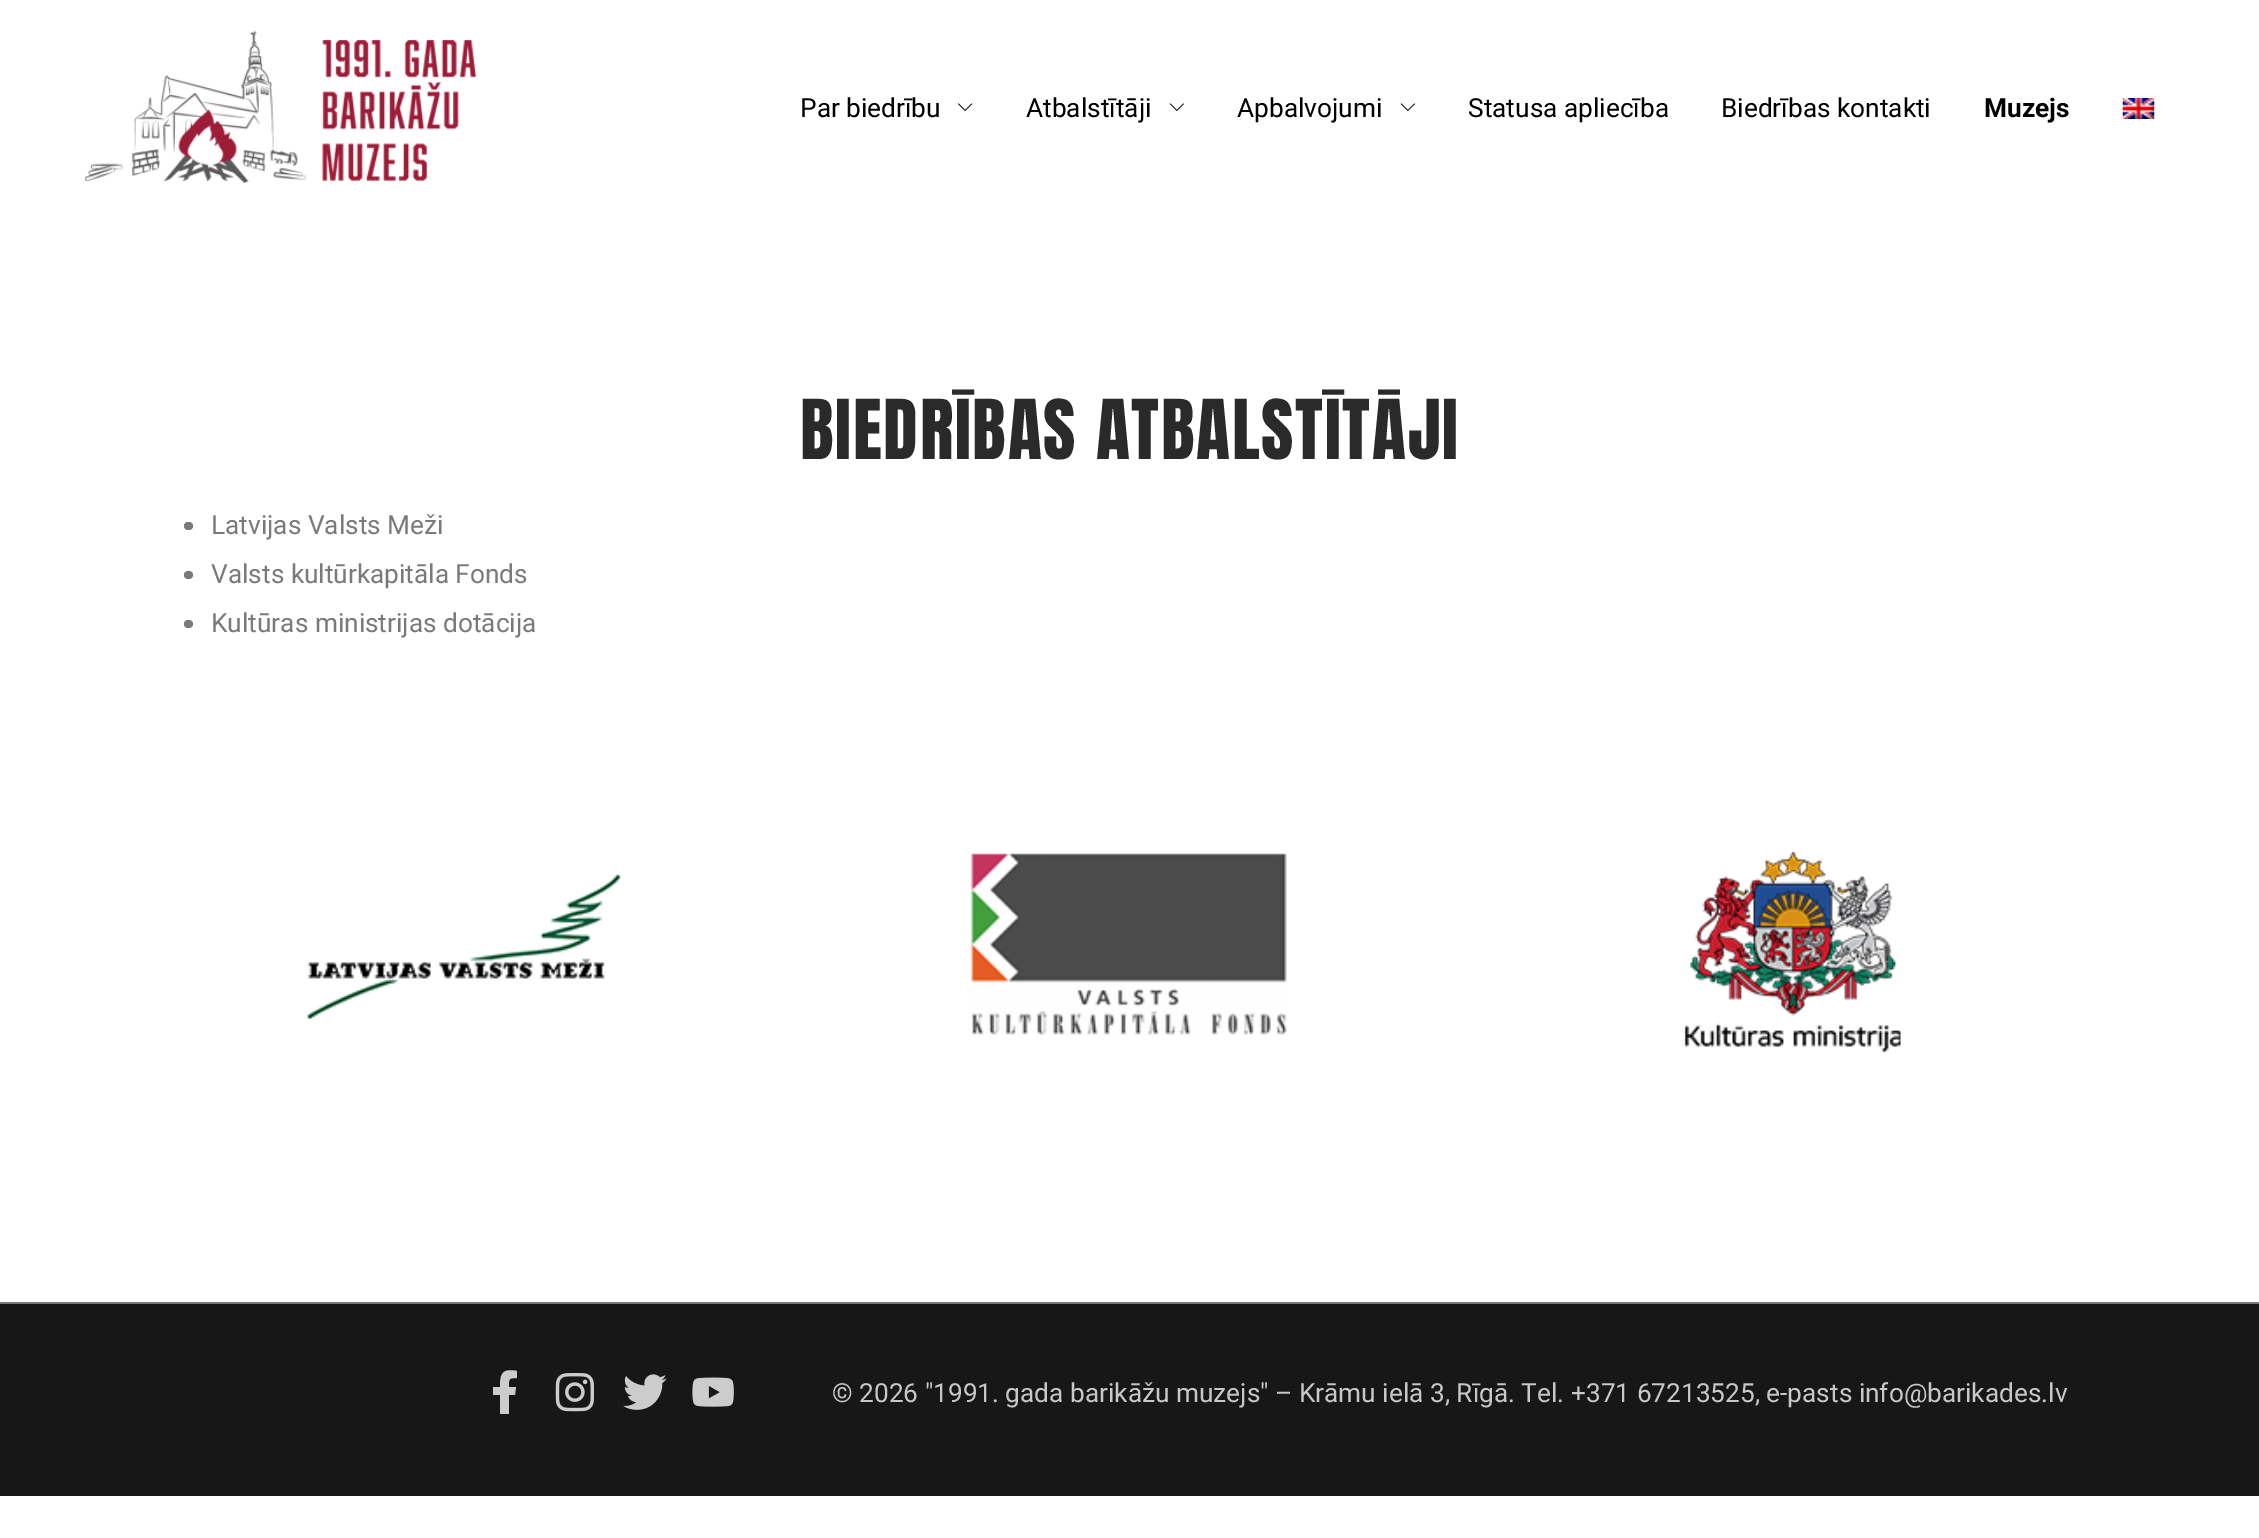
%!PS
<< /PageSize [2259 1538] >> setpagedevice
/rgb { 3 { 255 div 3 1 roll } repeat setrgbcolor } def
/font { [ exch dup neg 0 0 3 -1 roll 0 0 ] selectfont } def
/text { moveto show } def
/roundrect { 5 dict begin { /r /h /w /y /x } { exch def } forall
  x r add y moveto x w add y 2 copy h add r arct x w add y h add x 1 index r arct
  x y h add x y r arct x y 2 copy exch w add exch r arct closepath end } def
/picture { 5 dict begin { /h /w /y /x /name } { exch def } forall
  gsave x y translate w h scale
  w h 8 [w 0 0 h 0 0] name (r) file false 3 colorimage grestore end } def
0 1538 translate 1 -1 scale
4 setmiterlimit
255 255 255 rgb
0 0 2259 1538 rectfill
(img_01.rgb) 85 30 392 154 picture
(img_02.rgb) 958 103 15 8 picture
(img_03.rgb) 1169 103 15 8 picture
(img_03.rgb) 1400 103 15 8 picture
(img_04.rgb) 2122 98 33 21 picture
122 122 122 rgb
184 522 9 8 4 roundrect fill
184 571 9 8 4 roundrect fill
184 620 9 8 4 roundrect fill
(img_05.rgb) 306 874 316 146 picture
(img_06.rgb) 970 853 317 182 picture
(img_07.rgb) 1684 851 217 202 picture
23 23 23 rgb
0 1304 2259 192 rectfill
122 122 122 rgb
0 1302 2259 2 rectfill
204 204 204 rgb
515 1395 moveto 1 -8 rlineto -7 0 rlineto 0 -8 -1 -9 8 -9 rcurveto 0 -7 rlineto -15 -3 -17 3 -17 16 rcurveto -7 0 rlineto 0 8 rlineto 7 0 rlineto 0 19 rlineto 9 0 rlineto 0 -19 rlineto closepath fill
(img_08.rgb) 555 1373 39 39 picture
(img_09.rgb) 623 1374 44 36 picture
(img_10.rgb) 692 1377 42 30 picture
/Roboto-Regular 26.25 font
0 0 0 rgb
(Par biedrību) 800 117 text
(Atbalstītāji) 1026 117 text
(Apbalvojumi) 1237 117 text
(Statusa apliecība) 1468 117 text
(Biedrības kontakti) 1721 117 text
/Roboto-Bold 26.25 font
(Muzejs) 1984 117 text
/Anton-Regular 70 font
42 42 42 rgb
800 459 moveto 1.75 0 (BIEDRĪBAS ATBALSTĪTĀJI) ashow
/Roboto-Regular 26.25 font
122 122 122 rgb
(Latvijas Valsts Meži) 211 534 text
(Valsts kultūrkapitāla Fonds) 211 583 text
(Kultūras ministrijas dotācija) 211 632 text
200 200 200 rgb
(© 2026 "1991. gada barikāžu muzejs" – Krāmu ielā 3, Rīgā. Tel. +371 67213525, e-pasts info@barikades.lv) 832 1402 text
showpage
